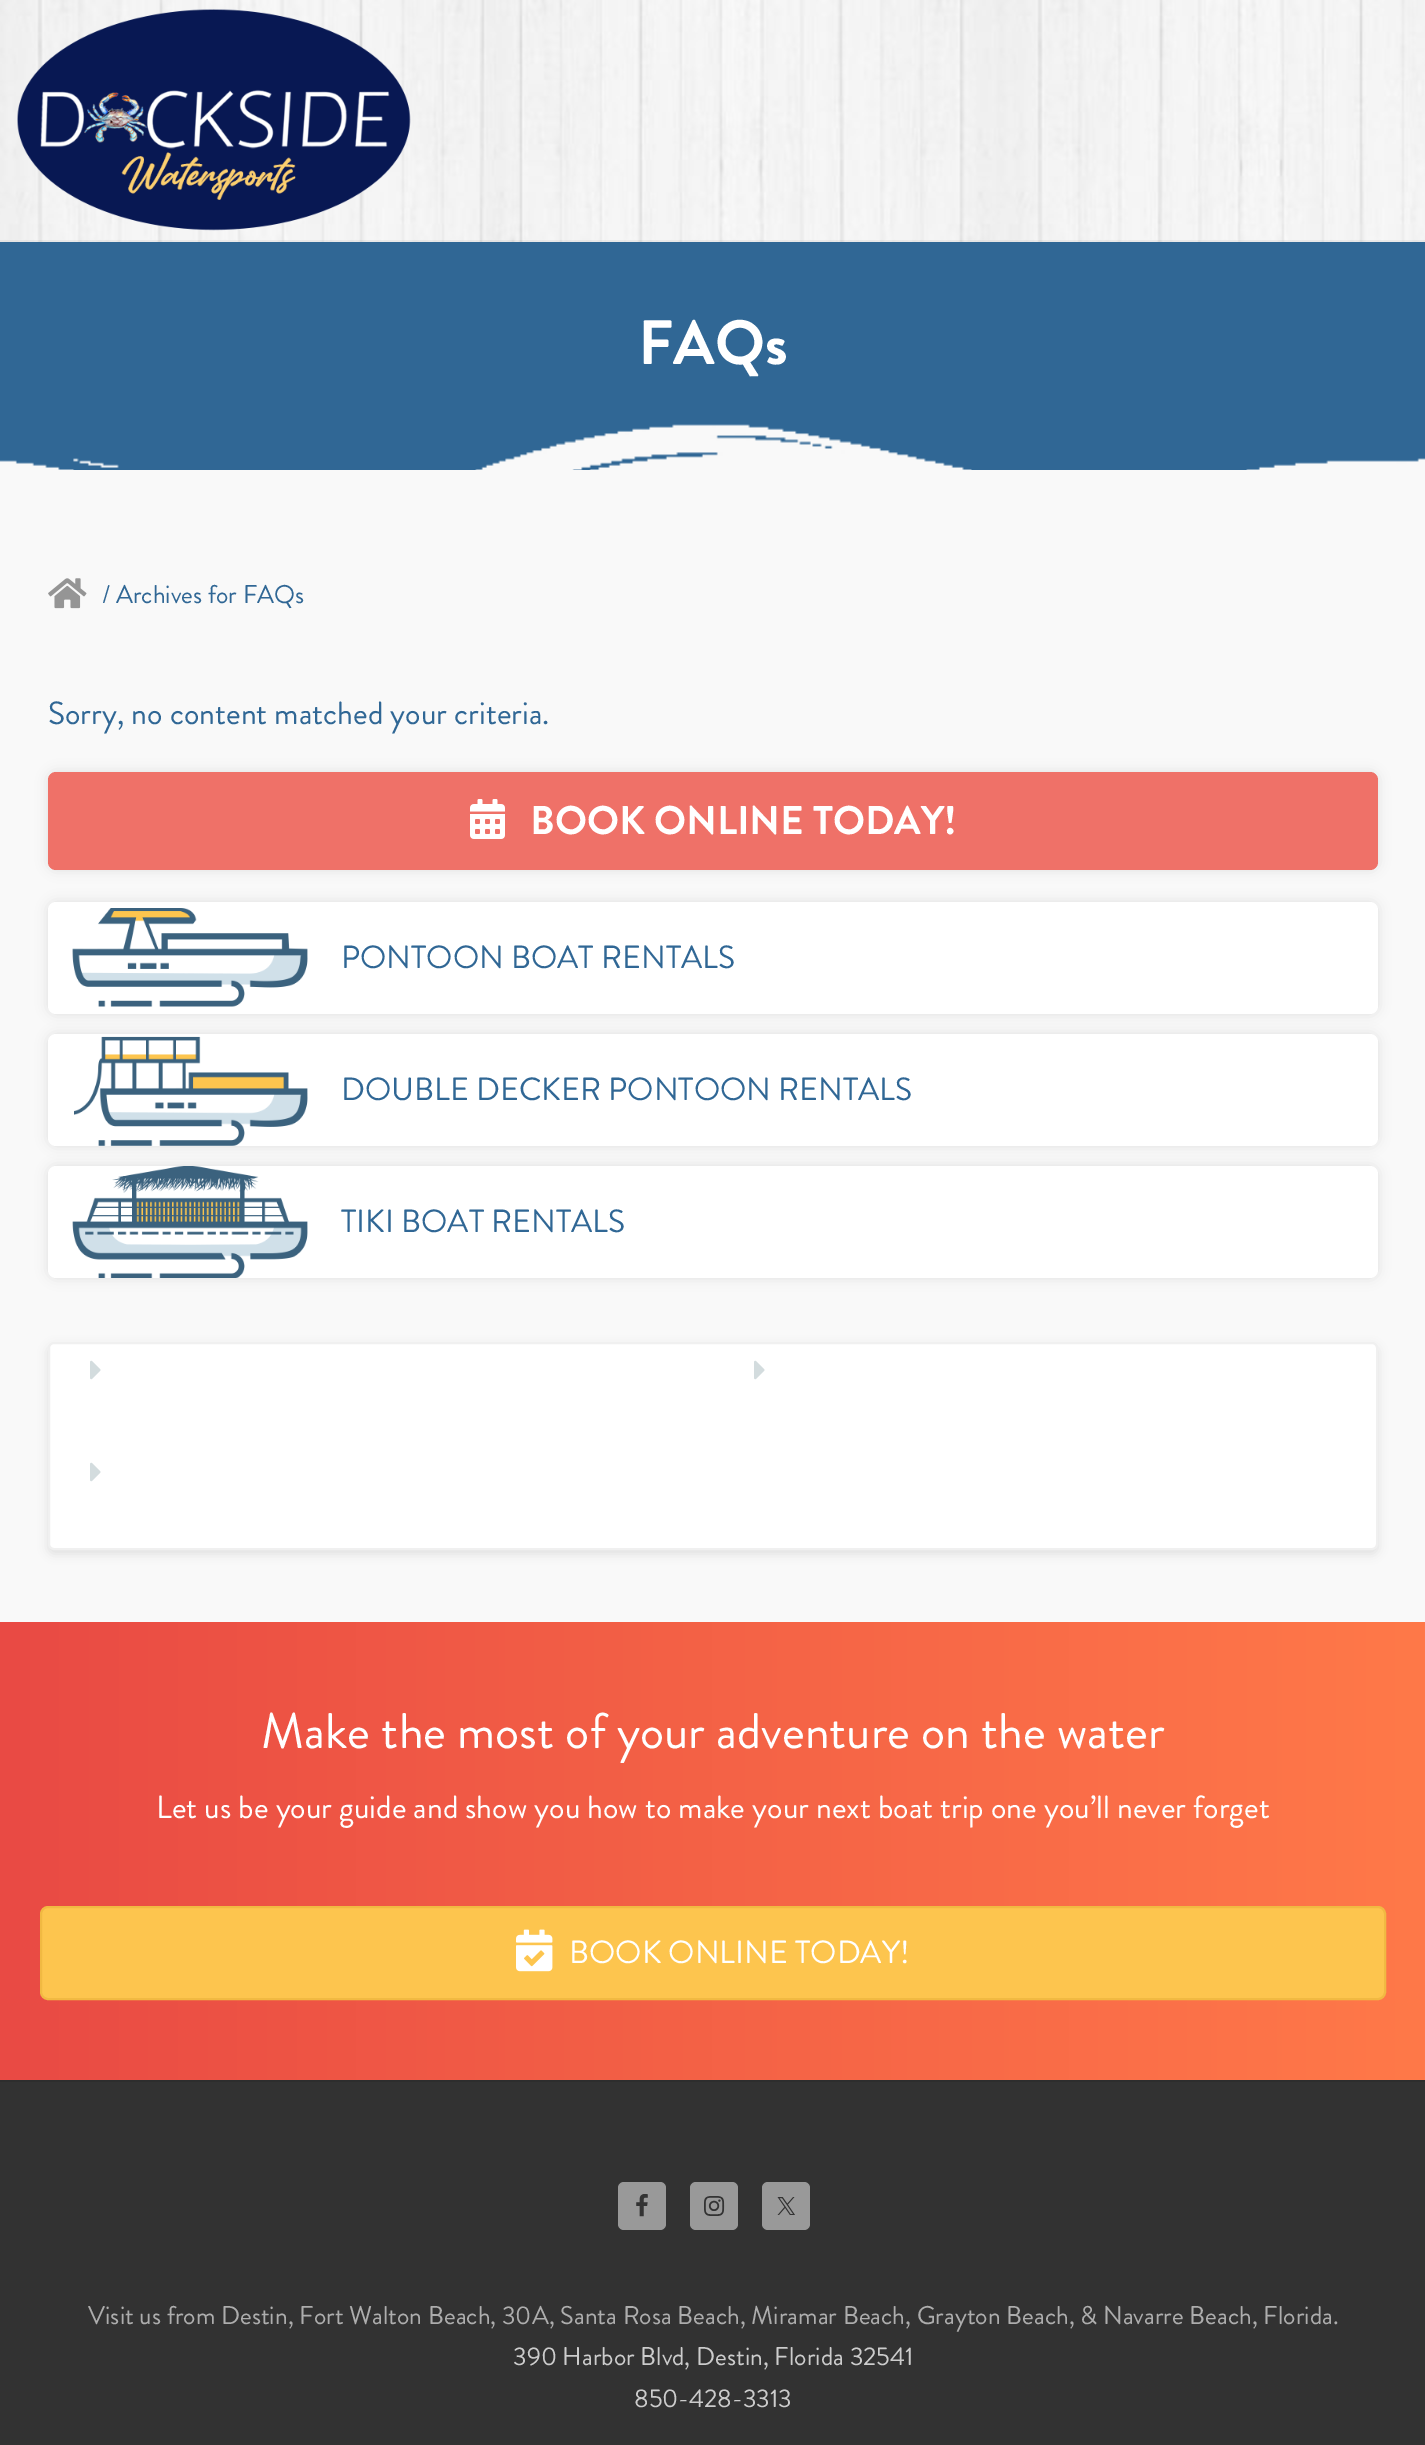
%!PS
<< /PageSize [1425 2445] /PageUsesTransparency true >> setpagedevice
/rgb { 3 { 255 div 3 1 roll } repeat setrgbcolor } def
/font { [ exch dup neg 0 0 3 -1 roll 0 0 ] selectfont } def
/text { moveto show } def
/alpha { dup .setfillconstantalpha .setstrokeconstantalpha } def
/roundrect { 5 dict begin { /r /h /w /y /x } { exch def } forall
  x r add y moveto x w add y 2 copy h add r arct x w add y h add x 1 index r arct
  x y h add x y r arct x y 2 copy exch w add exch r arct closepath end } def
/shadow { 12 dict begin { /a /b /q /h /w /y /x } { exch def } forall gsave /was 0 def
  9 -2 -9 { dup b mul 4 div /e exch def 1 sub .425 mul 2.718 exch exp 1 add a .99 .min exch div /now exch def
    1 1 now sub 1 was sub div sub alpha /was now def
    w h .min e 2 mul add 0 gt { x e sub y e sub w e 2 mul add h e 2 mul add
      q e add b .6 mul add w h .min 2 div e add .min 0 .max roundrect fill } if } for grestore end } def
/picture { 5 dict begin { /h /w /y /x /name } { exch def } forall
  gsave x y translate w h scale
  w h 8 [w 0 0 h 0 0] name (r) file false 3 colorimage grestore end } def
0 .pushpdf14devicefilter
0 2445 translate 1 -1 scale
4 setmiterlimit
249 249 249 rgb
0 0 1425 2445 rectfill
(img_01.rgb) 0 0 1425 242 picture
0.05 alpha
0 0 0 rgb
0 240 1425 2 rectfill
1 alpha
(img_02.rgb) 17 9 394 222 picture
48 103 149 rgb
0 242 1425 228 rectfill
(img_03.rgb) 0 424 1425 46 picture
(img_04.rgb) 48 578 39 31 picture
0 0 0 rgb
48 772 1330 98 8 6 0.1 shadow
239 113 104 rgb
48 772 1330 98 8 roundrect fill
(img_05.rgb) 470 799 35 40 picture
0 0 0 rgb
48 902 1330 112 8 6 0.1 shadow
255 255 255 rgb
48 902 1330 112 8 roundrect fill
(img_06.rgb) 72 908 236 99 picture
0 0 0 rgb
48 1034 1330 112 8 6 0.1 shadow
255 255 255 rgb
48 1034 1330 112 8 roundrect fill
(img_07.rgb) 74 1036 234 110 picture
0 0 0 rgb
48 1166 1330 112 8 6 0.1 shadow
255 255 255 rgb
48 1166 1330 112 8 roundrect fill
(img_08.rgb) 72 1166 236 112 picture
0 0 0 rgb
48 1346 1330 208 6 5 0.1 shadow
255 255 255 rgb
49 1343 1328 206 5 roundrect gsave fill grestore
240 240 240 rgb
2 setlinewidth
stroke
(img_09.rgb) 90 1360 11 20 picture
(img_09.rgb) 754 1360 11 20 picture
(img_09.rgb) 90 1462 11 20 picture
gsave 0 1622 moveto 1425 0 rlineto 0 458 rlineto -1425 0 rlineto closepath clip newpath
<< /ShadingType 2 /ColorSpace /DeviceRGB /Coords [0 1851 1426 1851] /Extend [true true] /Function << /FunctionType 2 /Domain [0 1] /C0 [0.914 0.29 0.267] /C1 [1 0.475 0.286] /N 1 >> >> shfill grestore
253 197 78 rgb
41 1907 1344 92 7 roundrect gsave fill grestore
241 185 66 rgb
stroke
(img_10.rgb) 516 1929 37 43 picture
50 50 50 rgb
0 2082 1425 363 rectfill
45 45 45 rgb
0 2080 1425 2 rectfill
153 153 153 rgb
618 2182 48 48 6 roundrect fill
(img_11.rgb) 636 2194 12 23 picture
690 2182 48 48 6 roundrect fill
(img_12.rgb) 704 2196 21 20 picture
762 2182 48 48 6 roundrect fill
(img_13.rgb) 777 2197 18 18 picture
/BrandonGrotesque-Bold 62.5 font
255 255 255 rgb
(FAQs) 638 364 text
/BrandonGrotesque-Regular 25.6 font
48 103 149 rgb
(/ Archives for FAQs) 102 603 text
/BrandonGrotesque-Regular 32 font
(Sorry, no content matched your criteria.) 48 724 text
/BrandonGrotesque-Bold 40 font
255 255 255 rgb
(BOOK ONLINE TODAY!) 530 834 text
/BrandonGrotesque-Regular 32 font
48 103 149 rgb
(PONTOON BOAT RENTALS) 341 968 text
(DOUBLE DECKER PONTOON RENTALS) 341 1100 text
(TIKI BOAT RENTALS) 341 1232 text
/BrandonGrotesque-Regular 50 font
255 255 255 rgb
(Make the most of your adventure on the water) 261 1748 text
/BrandonGrotesque-Regular 32 font
(Let us be your guide and show you how to make your next boat trip one you’ll never forget) 156 1818 text
(BOOK ONLINE TODAY!) 569 1963 text
/BrandonGrotesque-Regular 25.6 font
173 173 173 rgb
(Visit us from Destin, Fort Walton Beach, 30A, Santa Rosa Beach, Miramar Beach, Grayton Beach, & Navarre Beach, Florida.) 88 2324 text
204 204 204 rgb
(390 Harbor Blvd, Destin, Florida 32541) 513 2365 text
(850-428-3313) 634 2407 text
.poppdf14devicefilter showpage
